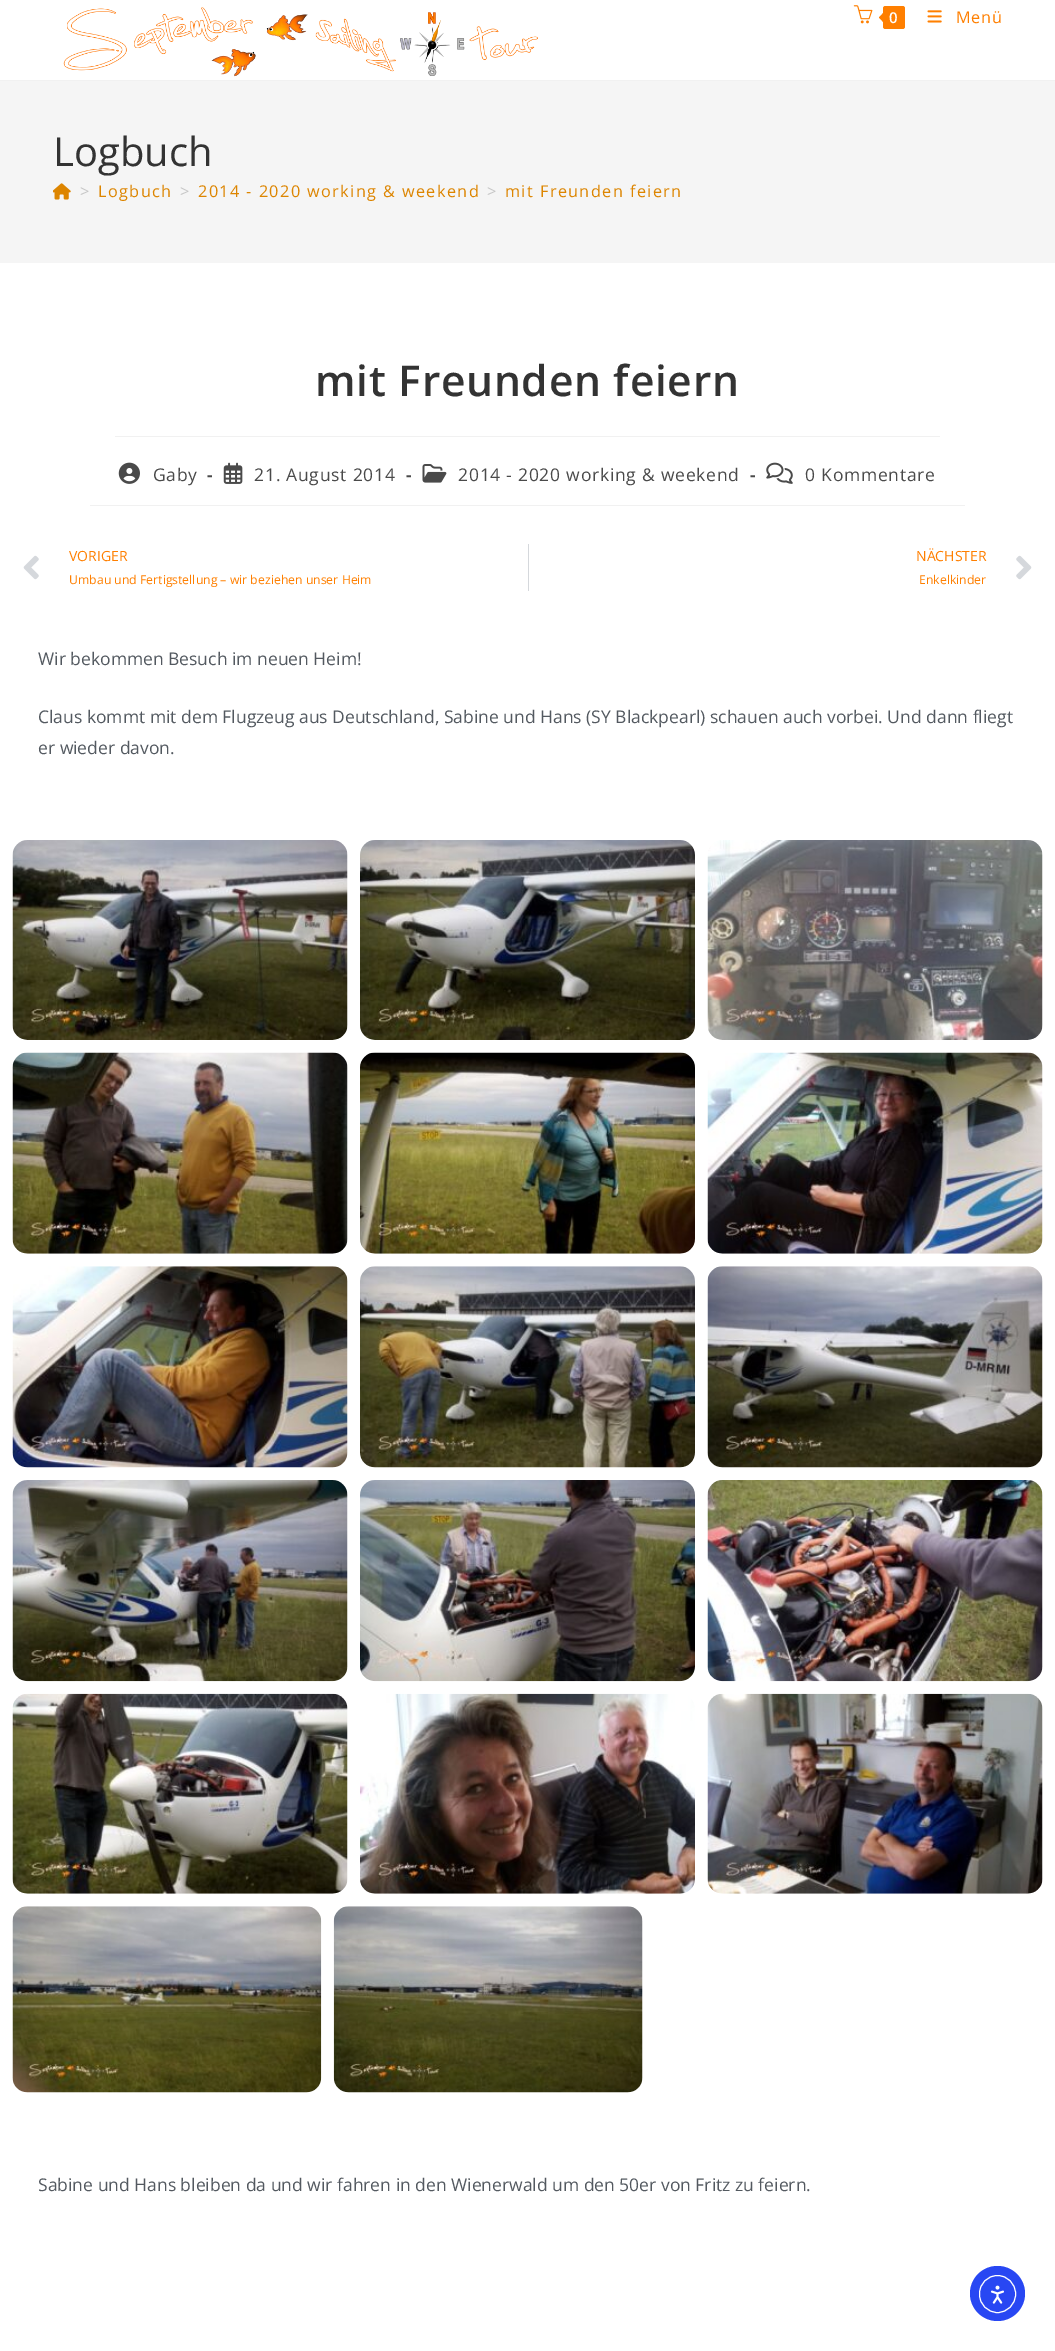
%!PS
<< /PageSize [1055 2351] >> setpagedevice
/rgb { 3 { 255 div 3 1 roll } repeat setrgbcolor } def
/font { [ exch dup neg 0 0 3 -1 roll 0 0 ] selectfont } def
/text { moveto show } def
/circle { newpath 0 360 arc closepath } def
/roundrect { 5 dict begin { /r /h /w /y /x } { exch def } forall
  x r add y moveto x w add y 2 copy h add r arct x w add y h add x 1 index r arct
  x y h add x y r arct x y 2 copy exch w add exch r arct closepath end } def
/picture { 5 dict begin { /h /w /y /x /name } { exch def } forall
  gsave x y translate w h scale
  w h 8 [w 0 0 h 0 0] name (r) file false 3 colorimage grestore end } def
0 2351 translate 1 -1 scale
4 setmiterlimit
255 255 255 rgb
0 0 1055 2351 rectfill
241 241 241 rgb
0 80 1055 1 rectfill
(img_01.rgb) 63 7 475 70 picture
(img_02.rgb) 853 5 20 19 picture
255 127 0 rgb
883 6 22 23 2.5 roundrect fill
885 11 moveto 0 13 rlineto -6 -6.5 rlineto closepath fill
(img_03.rgb) 927 10 15 13 picture
245 245 245 rgb
0 81 1055 182 rectfill
(img_04.rgb) 53 183 18 17 picture
241 241 241 rgb
115 436 825 1 rectfill
90 505 875 1 rectfill
(img_05.rgb) 118 462 22 22 picture
(img_06.rgb) 223 462 20 22 picture
(img_07.rgb) 422 464 25 19 picture
(img_08.rgb) 766 462 27 22 picture
(img_09.rgb) 23 555 16 25 picture
213 216 220 rgb
528 544 1 47 rectfill
(img_10.rgb) 1016 555 16 25 picture
(img_11.rgb) 12 840 336 200 picture
(img_12.rgb) 360 840 335 200 picture
(img_13.rgb) 707 840 336 200 picture
(img_14.rgb) 12 1052 336 202 picture
(img_15.rgb) 360 1052 335 202 picture
(img_16.rgb) 707 1052 336 202 picture
(img_17.rgb) 12 1266 336 202 picture
(img_18.rgb) 360 1266 335 202 picture
(img_19.rgb) 707 1266 336 202 picture
(img_20.rgb) 12 1480 336 202 picture
(img_21.rgb) 360 1480 335 202 picture
(img_22.rgb) 707 1480 336 202 picture
(img_23.rgb) 12 1693 336 201 picture
(img_24.rgb) 360 1693 335 201 picture
(img_25.rgb) 707 1693 336 201 picture
(img_26.rgb) 12 1906 310 187 picture
(img_27.rgb) 333 1906 310 187 picture
40 71 243 rgb
997.5 2293.5 27.5 circle fill
255 255 255 rgb
979.5 2275.5 36 37 18 roundrect stroke
(img_28.rgb) 990 2285 14 19 picture
/OpenSans-SemiBold 15 font
889 23 moveto 0.75 0 (0) ashow
/OpenSans-Regular 16.25 font
255 127 0 rgb
956 23 moveto 0.75 0 (Menü) ashow
/OpenSans-Regular 40 font
51 51 51 rgb
(Logbuch) 53 166 text
/OpenSans-Regular 16.25 font
198 198 198 rgb
80 197 moveto 1.4 0 (>) ashow
221 133 0 rgb
98 197 moveto 1.4 0 (Logbuch) ashow
198 198 198 rgb
180 197 moveto 1.4 0 (>) ashow
221 133 0 rgb
198 197 moveto 1.4 0 (2014 - 2020 working & weekend) ashow
198 198 198 rgb
487 197 moveto 1.4 0 (>) ashow
221 133 0 rgb
505 197 moveto 1.4 0 (mit Freunden feiern) ashow
/OpenSans-SemiBold 42.5 font
51 51 51 rgb
315 396 moveto 0.75 0 (mit Freunden feiern) ashow
/OpenSans-Regular 17.5 font
74 74 74 rgb
153 481 moveto 0.75 0 (Gaby) ashow
/OpenSans-Bold 17.5 font
207 481 moveto 0.75 0 (-) ashow
/OpenSans-Regular 17.5 font
254 481 moveto 0.75 0 (21. August 2014) ashow
/OpenSans-Bold 17.5 font
406 481 moveto 0.75 0 (-) ashow
/OpenSans-Regular 17.5 font
458 481 moveto 0.75 0 (2014 - 2020 working & weekend) ashow
/OpenSans-Bold 17.5 font
750 481 moveto 0.75 0 (-) ashow
/OpenSans-Regular 17.5 font
805 481 moveto 0.75 0 (0 Kommentare) ashow
/OpenSans-Regular 14 font
255 127 0 rgb
(VORIGER) 69 561 text
/OpenSans-Regular 12.25 font
(Umbau und Fertigstellung – wir beziehen unser Heim) 69 584 text
/OpenSans-Regular 14 font
(NÄCHSTER) 916 561 text
/OpenSans-Regular 12.25 font
(Enkelkinder) 919 584 text
/OpenSans-Regular 17.5 font
83 89 96 rgb
(Wir bekommen Besuch im neuen Heim!) 38 665 text
(Claus kommt mit dem Flugzeug aus Deutschland, Sabine und Hans \(SY Blackpearl\) schauen auch vorbei. Und dann fliegt) 38 723 text
(er wieder davon.) 38 754 text
(Sabine und Hans bleiben da und wir fahren in den Wienerwald um den 50er von Fritz zu feiern.) 38 2191 text
showpage
